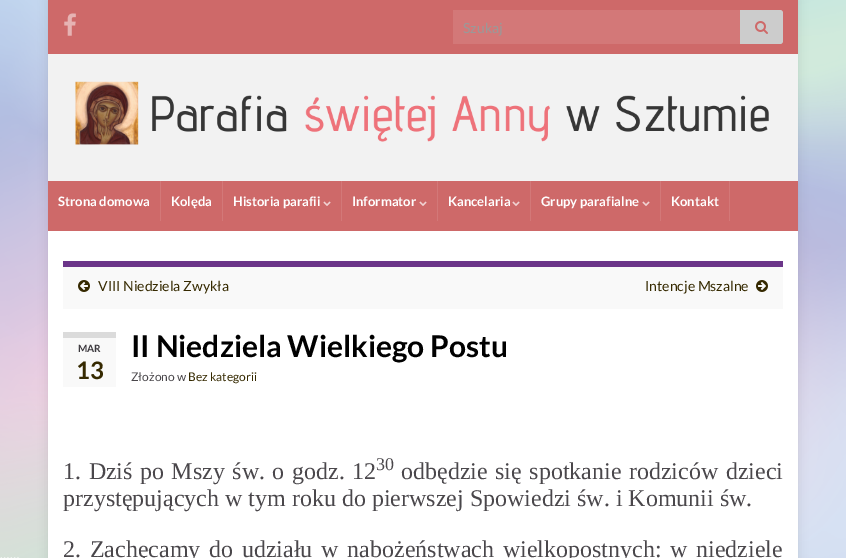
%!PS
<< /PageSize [846 558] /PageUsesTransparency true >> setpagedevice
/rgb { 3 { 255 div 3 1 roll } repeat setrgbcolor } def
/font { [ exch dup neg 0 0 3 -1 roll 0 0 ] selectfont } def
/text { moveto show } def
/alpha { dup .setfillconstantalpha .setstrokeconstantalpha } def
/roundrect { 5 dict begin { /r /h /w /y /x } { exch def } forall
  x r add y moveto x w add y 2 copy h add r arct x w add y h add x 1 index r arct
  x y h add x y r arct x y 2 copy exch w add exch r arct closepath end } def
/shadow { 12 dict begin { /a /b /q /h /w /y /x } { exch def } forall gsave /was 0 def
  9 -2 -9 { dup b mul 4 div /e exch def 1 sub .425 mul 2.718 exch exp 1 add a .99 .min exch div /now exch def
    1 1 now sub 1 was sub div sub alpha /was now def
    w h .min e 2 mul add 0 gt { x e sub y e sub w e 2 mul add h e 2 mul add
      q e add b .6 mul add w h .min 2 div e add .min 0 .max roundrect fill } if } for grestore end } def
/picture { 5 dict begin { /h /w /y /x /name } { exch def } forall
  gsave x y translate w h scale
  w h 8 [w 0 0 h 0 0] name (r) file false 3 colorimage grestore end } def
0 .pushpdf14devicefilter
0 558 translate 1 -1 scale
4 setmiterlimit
255 255 255 rgb
0 0 846 558 rectfill
(img_01.rgb) 0 0 846 558 picture
0 0 0 rgb
48 0 750 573 0 5 0.1 shadow
206 105 105 rgb
48 0 750 54 rectfill
(img_02.rgb) 64 13 12 23 picture
211 120 120 rgb
453 10 287 34 rectfill
204 204 204 rgb
740 10 moveto 40 0 rlineto 1.5 0 3 1.5 3 3 rcurveto 0 28 rlineto 0 1.5 -1.5 3 -3 3 rcurveto -40 0 rlineto closepath fill
(img_03.rgb) 755 21 13 13 picture
(img_04.rgb) 48 54 750 127 picture
206 105 105 rgb
48 181 750 50 rectfill
211 120 120 rgb
160 181 1 40 rectfill
222 181 1 40 rectfill
341 181 1 40 rectfill
(img_05.rgb) 323 201 8 5 picture
437 181 1 40 rectfill
(img_05.rgb) 419 201 8 5 picture
530 181 1 40 rectfill
(img_05.rgb) 512 201 8 5 picture
660 181 1 40 rectfill
(img_05.rgb) 642 201 8 5 picture
729 181 1 40 rectfill
255 255 255 rgb
48 231 750 327 rectfill
249 249 249 rgb
63 267 720 42 rectfill
107 53 137 rgb
63 261 720 6 rectfill
(img_06.rgb) 78 280 12 12 picture
(img_07.rgb) 756 280 12 12 picture
249 249 249 rgb
63 338 53 49 rectfill
219 219 219 rgb
63 332 53 6 rectfill
/Lato-Regular 14 font
153 153 153 rgb
(Szukaj) 463 33 text
/Lato-Bold 13 font
255 255 255 rgb
(Strona domowa) 58 206 text
(Kolęda) 171 206 text
(Historia parafii) 233 206 text
(Informator) 352 206 text
(Kancelaria) 448 206 text
(Grupy parafialne) 541 206 text
(Kontakt) 671 206 text
/Lato-Regular 14 font
53 41 0 rgb
(VIII Niedziela Zwykła) 98 291 text
(Intencje Mszalne) 645 291 text
/Lato-Bold 10 font
59 56 61 rgb
(MAR) 78 352 text
/Lato-Bold 24 font
53 41 0 rgb
(13) 76 379 text
/Lato-Bold 30 font
0 0 0 rgb
(II Niedziela Wielkiego Postu) 131 357 text
/Lato-Regular 12 font
74 71 75 rgb
(Złożono w) 131 381 text
53 41 0 rgb
(Bez kategorii) 188 381 text
/LiberationSerif-Regular 24 font
74 71 75 rgb
63 479 moveto 1.5 0 32 (1. Dziś po Mszy św. o godz. 12) widthshow
/LiberationSerif-Regular 18 font
(30) 376 470 text
/LiberationSerif-Regular 24 font
401 479 moveto 1.5 0 32 (odbędzie się spotkanie rodziców dzieci) widthshow
(przystępujących w tym roku do pierwszej Spowiedzi św. i Komunii św.) 63 506 text
63 557 moveto 2.75 0 32 (2. Zachęcamy do udziału w nabożeństwach wielkopostnych: w niedziele) widthshow
.poppdf14devicefilter showpage
